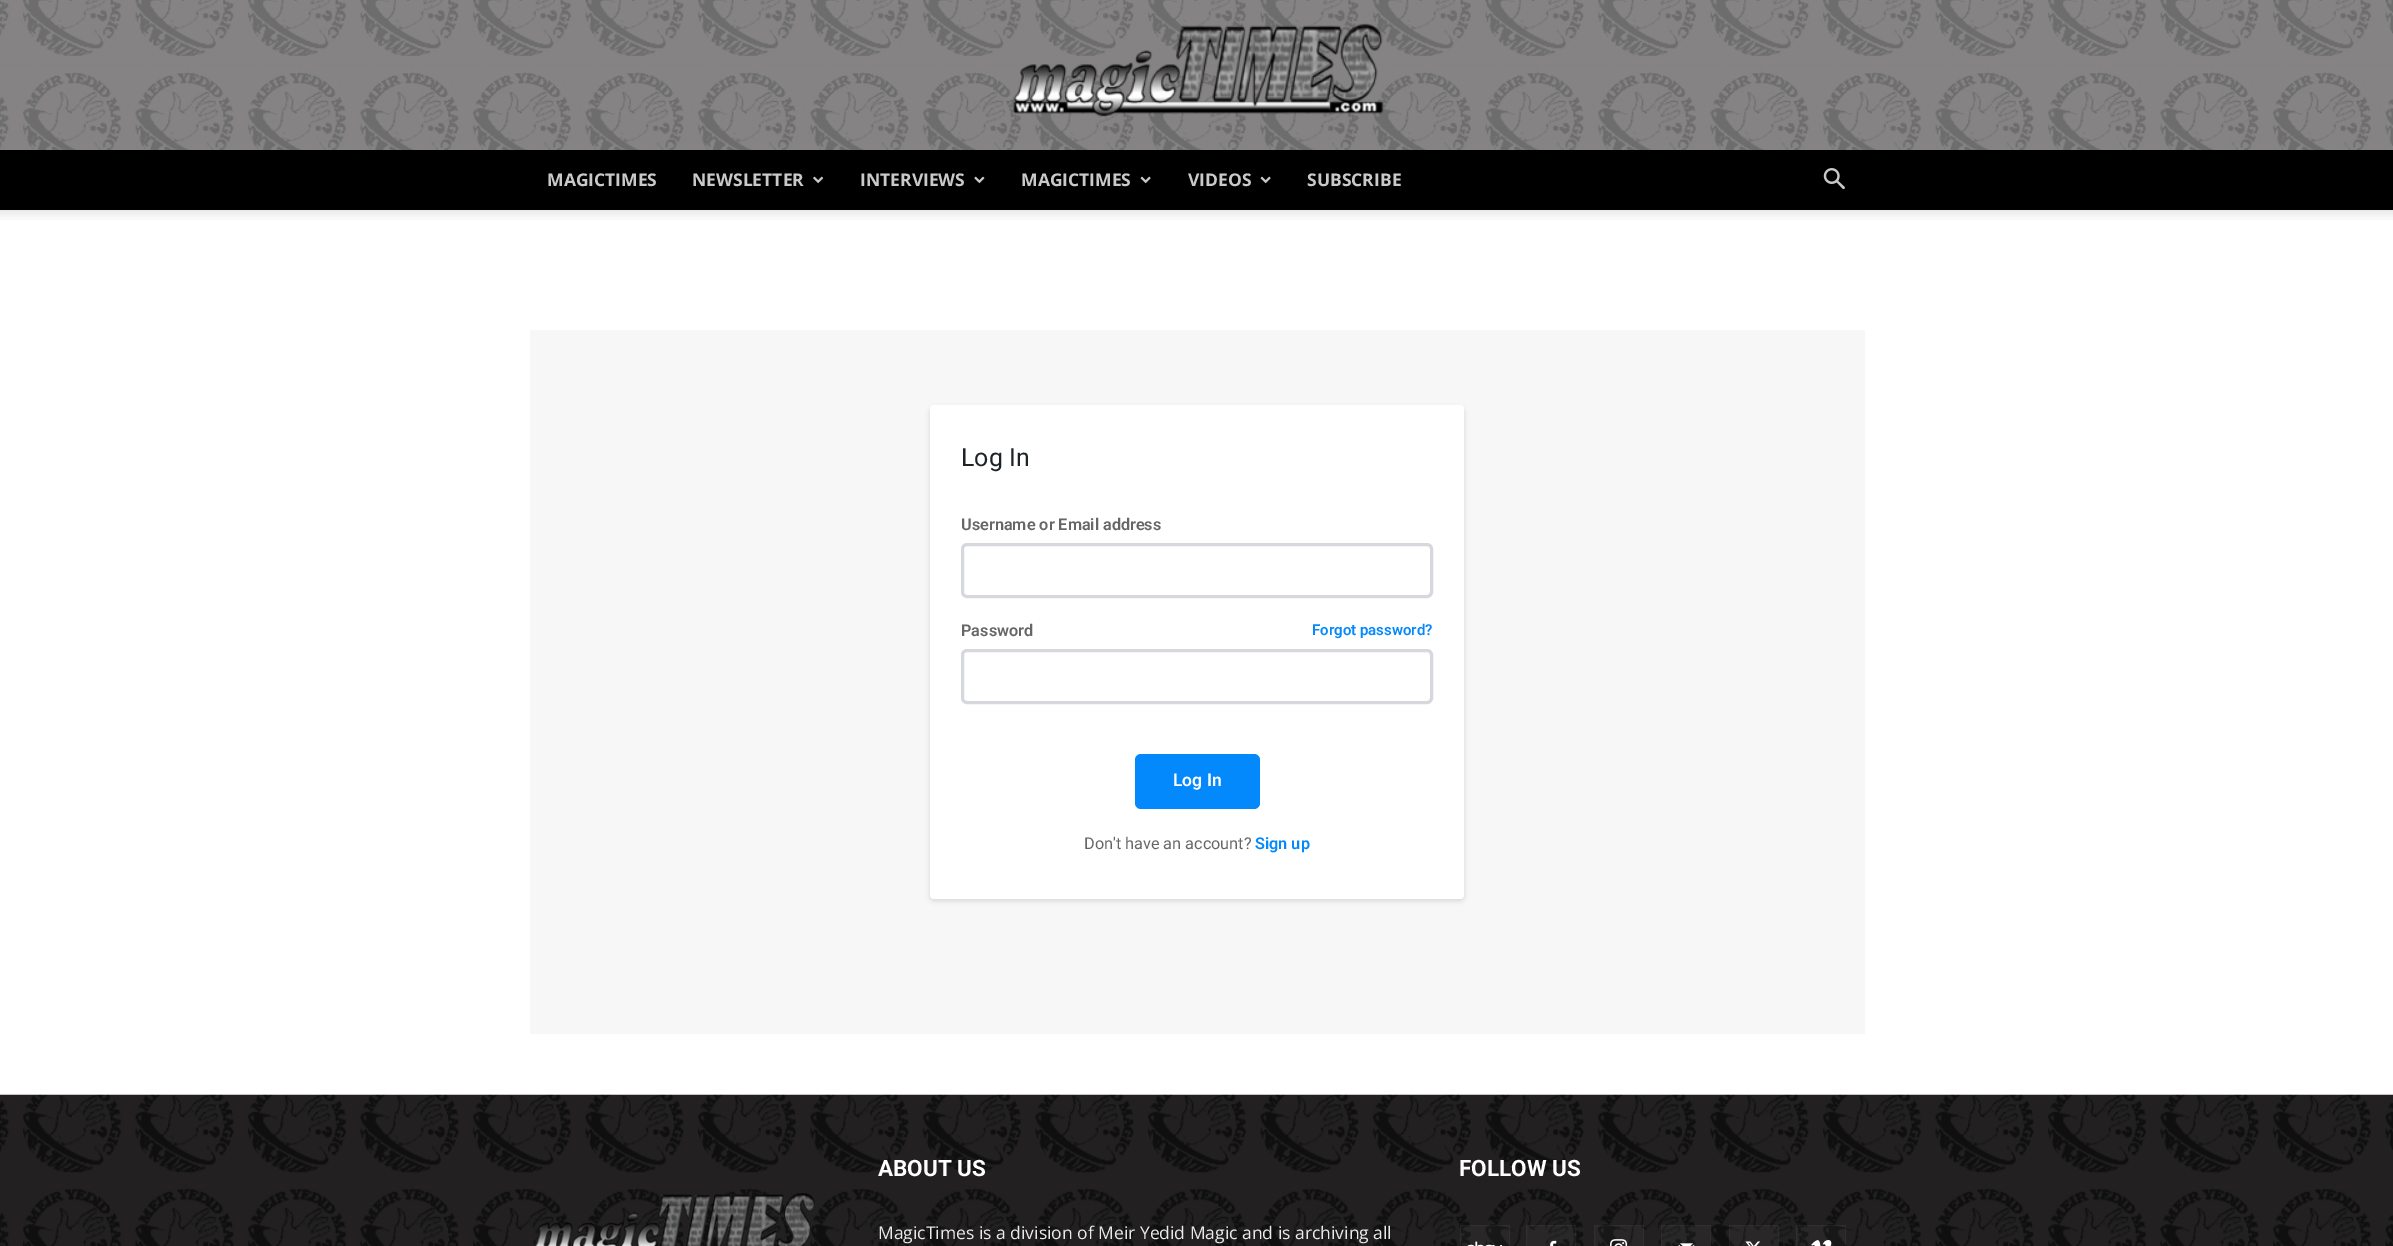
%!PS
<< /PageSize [2393 1246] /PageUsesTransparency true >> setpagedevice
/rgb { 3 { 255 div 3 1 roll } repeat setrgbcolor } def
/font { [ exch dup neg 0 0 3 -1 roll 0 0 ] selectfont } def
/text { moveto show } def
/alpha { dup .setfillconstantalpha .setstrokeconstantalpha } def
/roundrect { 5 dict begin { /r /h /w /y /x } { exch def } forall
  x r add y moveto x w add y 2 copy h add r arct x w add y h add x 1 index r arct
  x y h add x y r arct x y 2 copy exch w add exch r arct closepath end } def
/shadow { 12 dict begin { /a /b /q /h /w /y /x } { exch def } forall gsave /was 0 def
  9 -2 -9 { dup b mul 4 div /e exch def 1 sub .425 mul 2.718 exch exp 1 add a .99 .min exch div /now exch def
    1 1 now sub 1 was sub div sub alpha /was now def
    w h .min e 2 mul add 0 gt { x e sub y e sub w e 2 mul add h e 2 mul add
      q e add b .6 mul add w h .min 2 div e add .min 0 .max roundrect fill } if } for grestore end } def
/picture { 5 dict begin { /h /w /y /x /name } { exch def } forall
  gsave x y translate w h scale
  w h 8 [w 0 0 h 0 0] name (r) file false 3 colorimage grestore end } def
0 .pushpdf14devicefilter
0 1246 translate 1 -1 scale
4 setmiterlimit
255 255 255 rgb
0 0 2393 1246 rectfill
(img_01.rgb) 0 0 2393 150 picture
(img_02.rgb) 1013 23 371 94 picture
0 0 0 rgb
0 150 2393 60 rectfill
(img_03.rgb) 813 176 11 8 picture
(img_04.rgb) 974 176 11 8 picture
(img_05.rgb) 1140 176 11 8 picture
(img_05.rgb) 1260 176 11 8 picture
(img_06.rgb) 1823 168 22 22 picture
(img_07.rgb) 0 210 2393 10 picture
247 247 247 rgb
530 330 1335 704 rectfill
0 0 0 rgb
930 408 534 493 4 2.5 0.12 shadow
255 255 255 rgb
930 405 534 494 4 roundrect fill
215 216 222 rgb
3 setlinewidth
962.5 544.5 469 52 4.5 roundrect stroke
962.5 650.5 469 52 4.5 roundrect stroke
4 137 252 rgb
1135 754 125 55 6 roundrect fill
17 17 17 rgb
0 1095 2393 151 rectfill
(img_08.rgb) 0 1094 2393 152 picture
0.03 alpha
255 255 255 rgb
1460 1225 50 21 rectfill
1 alpha
(img_09.rgb) 1467 1241 36 5 picture
0.03 alpha
1 setlinewidth
1460.5 1225.5 49 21 rectstroke
1526 1225 50 21 rectfill
1 alpha
(img_10.rgb) 1550 1240 7 6 picture
0.03 alpha
1526.5 1225.5 49 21 rectstroke
1594 1225 50 21 rectfill
1 alpha
(img_11.rgb) 1610 1239 18 7 picture
0.03 alpha
1594.5 1225.5 49 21 rectstroke
1661 1225 50 21 rectfill
1 alpha
(img_12.rgb) 1678 1243 17 3 picture
0.03 alpha
1661.5 1225.5 49 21 rectstroke
1729 1225 50 21 rectfill
1 alpha
(img_13.rgb) 1745 1241 16 5 picture
0.03 alpha
1729.5 1225.5 49 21 rectstroke
1796 1225 50 21 rectfill
1 alpha
(img_14.rgb) 1811 1240 21 6 picture
0.03 alpha
1796.5 1225.5 49 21 rectstroke
1 alpha
(img_15.rgb) 535 1193 280 53 picture
/OpenSans-Bold 17.5 font
201 201 201 rgb
(MAGICTIMES) 547 186 text
(NEWSLETTER) 692 186 text
(INTERVIEWS) 860 186 text
(MAGICTIMES) 1021 186 text
(VIDEOS) 1188 186 text
(SUBSCRIBE) 1307 186 text
/Roboto-Regular 25 font
29 35 39 rgb
(Log In) 961 466 text
/Roboto-SemiBold 16.25 font
102 102 102 rgb
(Username or Email address) 961 530 text
(Password) 961 636 text
/Roboto-SemiBold 15 font
4 137 252 rgb
(Forgot password?) 1312 635 text
/Roboto-SemiBold 17.5 font
255 255 255 rgb
(Log In) 1173 786 text
/Roboto-Regular 16.25 font
102 102 102 rgb
(Don't have an account?) 1084 849 text
/Roboto-SemiBold 16.25 font
4 137 252 rgb
(Sign up) 1255 849 text
/Roboto-Bold 22.5 font
255 255 255 rgb
(ABOUT US) 878 1176 text
/OpenSans-Regular 17.5 font
234 234 234 rgb
(MagicTimes is a division of Meir Yedid Magic and is archiving all) 878 1239 text
/Roboto-Bold 22.5 font
255 255 255 rgb
(FOLLOW US) 1459 1176 text
.poppdf14devicefilter showpage
